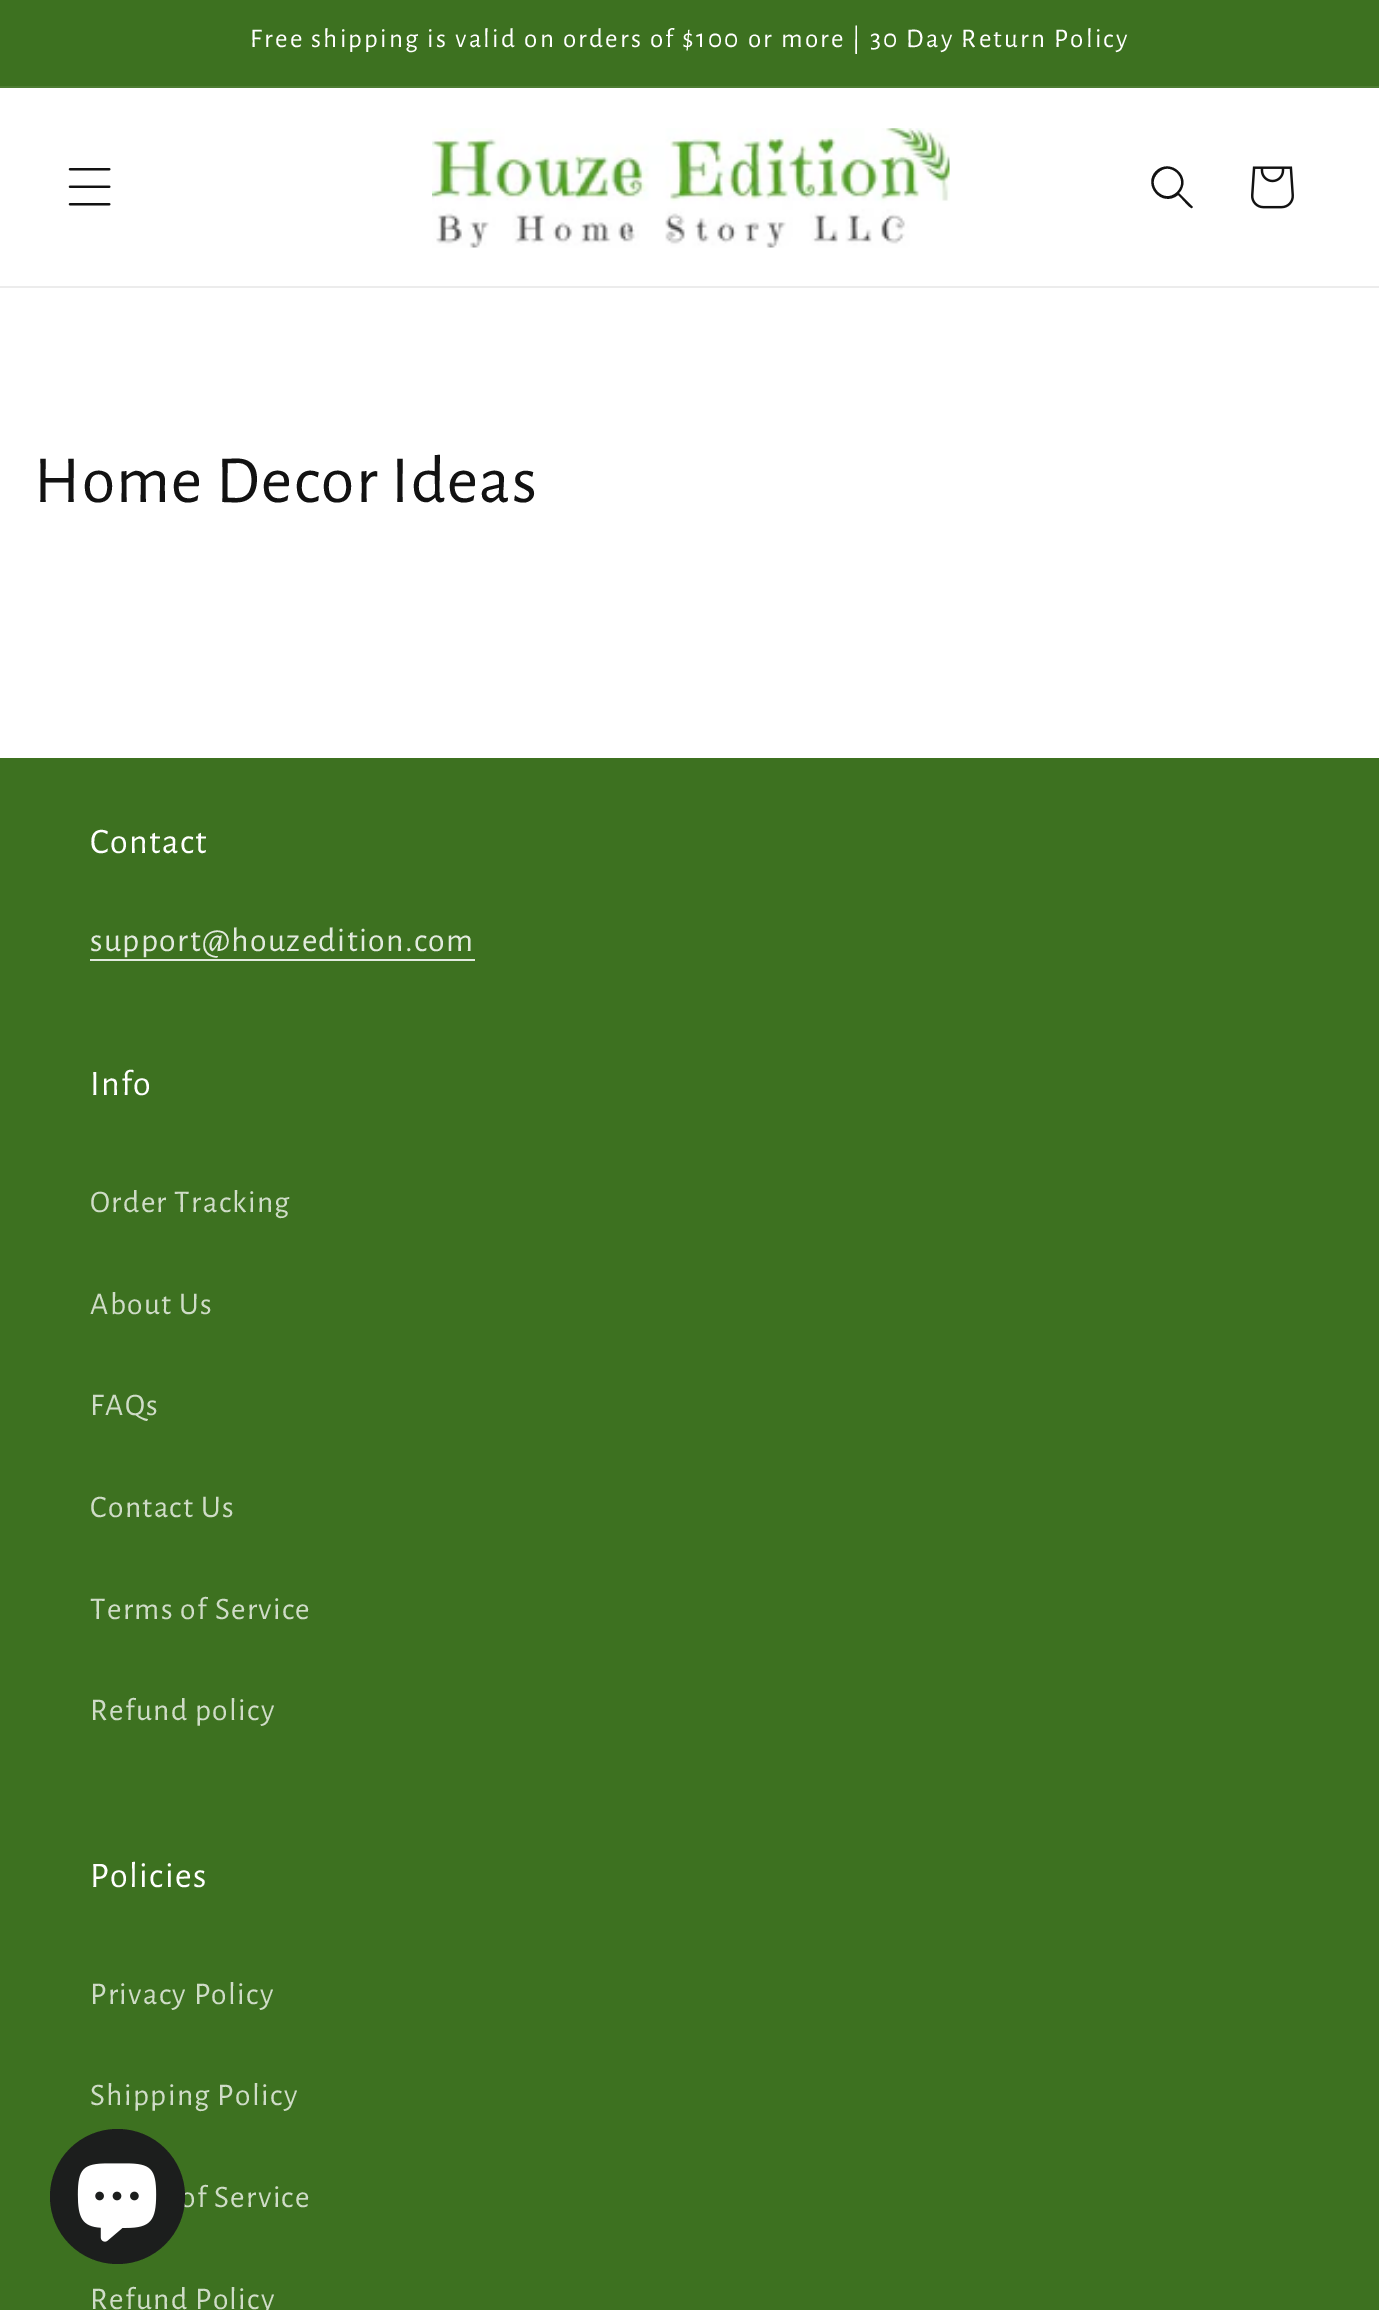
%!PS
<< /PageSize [1379 2310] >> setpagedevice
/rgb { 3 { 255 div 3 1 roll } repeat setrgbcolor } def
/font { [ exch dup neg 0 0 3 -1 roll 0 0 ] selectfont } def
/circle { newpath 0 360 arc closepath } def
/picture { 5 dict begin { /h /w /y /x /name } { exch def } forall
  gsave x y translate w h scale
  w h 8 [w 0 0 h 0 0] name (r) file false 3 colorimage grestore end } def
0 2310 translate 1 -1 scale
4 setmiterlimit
255 255 255 rgb
0 0 1379 2310 rectfill
61 113 32 rgb
0 0 1379 86 rectfill
77 124 50 rgb
0 86 1379 2 rectfill
236 236 236 rgb
0 286 1379 2 rectfill
(img_01.rgb) 68 168 43 38 picture
(img_02.rgb) 432 128 518 120 picture
18 18 18 rgb
1177 192 moveto -13 13 -32 -7 -19 -19 rcurveto 12 -13 32 6 19 19 rcurveto closepath 1178 195 moveto -16 13 -36 -10 -22 -24 rcurveto 15 -14 37 7 23 22 rcurveto 14 14 rlineto -1 1 rlineto -2 1 -12 -12 -14 -13 rcurveto closepath eofill
(img_03.rgb) 1251 166 43 43 picture
61 113 32 rgb
0 758 1379 1552 rectfill
226 234 222 rgb
90 959 385 2 rectfill
/AlegreyaSans-Regular 27 font
255 255 255 rgb
250 47 moveto 2.25 0 (Free shipping is valid on orders of $100 or more | 30 Day Return Policy) ashow
/AlegreyaSans-Regular 67.5 font
18 18 18 rgb
34 502 moveto 1.35 0 (Home Decor Ideas) ashow
/AlegreyaSans-Regular 36 font
255 255 255 rgb
90 853 moveto 1.35 0 (Contact) ashow
/AlegreyaSans-Regular 33.75 font
226 234 222 rgb
90 951 moveto 1.35 0 (support@houzedition.com) ashow
/AlegreyaSans-Regular 36 font
255 255 255 rgb
90 1095 moveto 1.35 0 (Info) ashow
/AlegreyaSans-Regular 31.5 font
207 220 199 rgb
90 1212 moveto 1.35 0 (Order Tracking) ashow
90 1314 moveto 1.35 0 (About Us) ashow
90 1415 moveto 1.35 0 (FAQs) ashow
90 1517 moveto 1.35 0 (Contact Us) ashow
90 1619 moveto 1.35 0 (Terms of Service) ashow
90 1720 moveto 1.35 0 (Refund policy) ashow
/AlegreyaSans-Regular 36 font
255 255 255 rgb
90 1887 moveto 1.35 0 (Policies) ashow
/AlegreyaSans-Regular 31.5 font
207 220 199 rgb
90 2004 moveto 1.35 0 (Privacy Policy) ashow
90 2105 moveto 1.35 0 (Shipping Policy) ashow
180 2207 moveto 1.35 0 (of Service) ashow
90 2309 moveto 1.35 0 (Refund Policy) ashow
28 30 29 rgb
117.5 2196.5 67.5 circle fill
(img_04.rgb) 77 2163 80 79 picture
showpage
